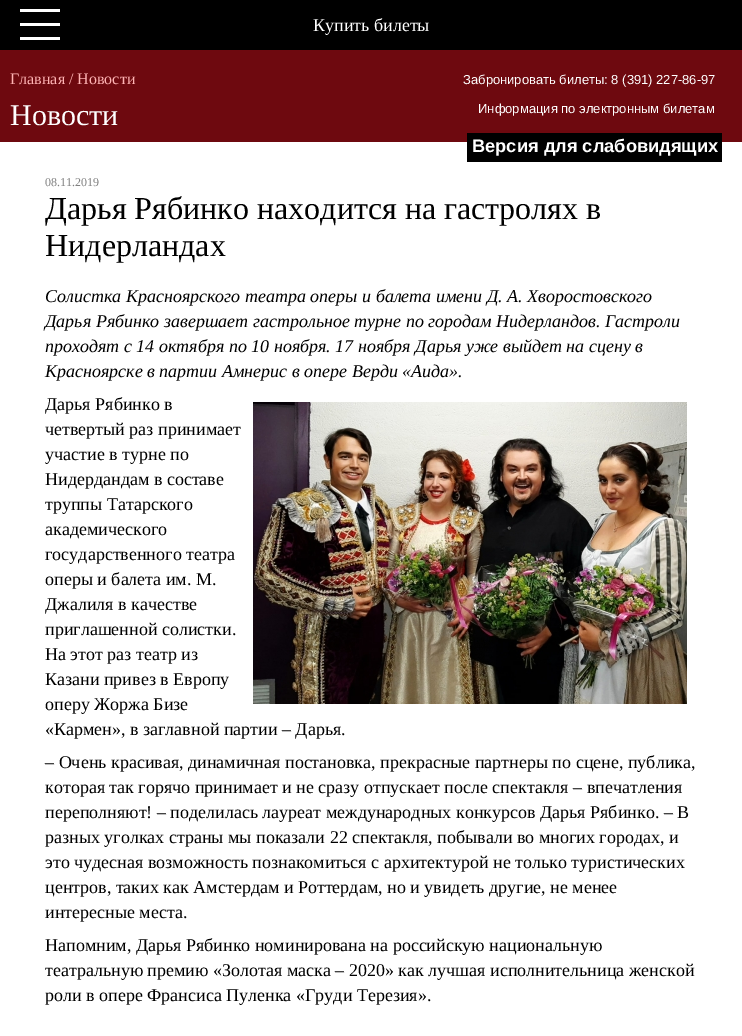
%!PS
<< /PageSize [742 1036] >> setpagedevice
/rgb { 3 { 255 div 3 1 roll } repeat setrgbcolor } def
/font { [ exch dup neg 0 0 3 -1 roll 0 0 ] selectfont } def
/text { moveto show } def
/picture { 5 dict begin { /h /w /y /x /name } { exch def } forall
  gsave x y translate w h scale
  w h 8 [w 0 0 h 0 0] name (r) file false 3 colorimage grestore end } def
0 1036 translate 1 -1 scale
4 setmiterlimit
255 255 255 rgb
0 0 742 1036 rectfill
0 0 0 rgb
0 0 742 50 rectfill
255 255 255 rgb
20 23 40 3 rectfill
20 9 40 3 rectfill
20 37 40 3 rectfill
110 9 15 rgb
0 50 742 92 rectfill
0 0 0 rgb
467 133 255 29 rectfill
(img_01.rgb) 253 402 434 302 picture
/LiberationSerif-Regular 18 font
255 255 255 rgb
(Купить билеты) 313 31 text
/LiberationSerif-Regular 16 font
255 180 180 rgb
(Главная / Новости) 10 84 text
/LiberationSans-Regular 13 font
255 255 255 rgb
(Забронировать билеты: 8 \(391\) 227-86-97) 463 84 text
(Информация по электронным билетам) 478 113 text
/LiberationSans-Bold 18.25 font
(Версия для слабовидящих) 472 152 text
/LiberationSerif-Regular 30 font
(Новости) 10 125 text
/LiberationSerif-Regular 12 font
128 128 128 rgb
(08.11.2019) 45 186 text
/LiberationSerif-Regular 32 font
0 0 0 rgb
(Дарья Рябинко находится на гастролях в) 45 219 text
(Нидерландах) 45 256 text
/LiberationSerif-Italic 18 font
(Солистка Красноярского театра оперы и балета имени Д. А. Хворостовского) 45 302 text
(Дарья Рябинко завершает гастрольное турне по городам Нидерландов. Гастроли) 45 327 text
(проходят с 14 октября по 10 ноября. 17 ноября Дарья уже выйдет на сцену в) 45 352 text
(Красноярске в партии Амнерис в опере Верди «Аида».) 45 377 text
/LiberationSerif-Regular 18 font
(Дарья Рябинко в) 45 410 text
(четвертый раз принимает) 45 435 text
(участие в турне по) 45 460 text
(Нидердандам в составе) 45 485 text
(труппы Татарского) 45 510 text
(академического) 45 535 text
(государственного театра) 45 560 text
(оперы и балета им. М.) 45 585 text
(Джалиля в качестве) 45 610 text
(приглашенной солистки.) 45 635 text
(На этот раз театр из) 45 660 text
(Казани привез в Европу) 45 685 text
(оперу Жоржа Бизе) 45 710 text
(«Кармен», в заглавной партии – Дарья.) 45 735 text
(– Очень красивая, динамичная постановка, прекрасные партнеры по сцене, публика,) 45 768 text
(которая так горячо принимает и не сразу отпускает после спектакля – впечатления) 45 793 text
(переполняют! – поделилась лауреат международных конкурсов Дарья Рябинко. – В) 45 818 text
(разных уголках страны мы показали 22 спектакля, побывали во многих городах, и) 45 843 text
(это чудесная возможность познакомиться с архитектурой не только туристических) 45 868 text
(центров, таких как Амстердам и Роттердам, но и увидеть другие, не менее) 45 893 text
(интересные места.) 45 918 text
(Напомним, Дарья Рябинко номинирована на российскую национальную) 45 951 text
(театральную премию «Золотая маска – 2020» как лучшая исполнительница женской) 45 976 text
(роли в опере Франсиса Пуленка «Груди Терезия».) 45 1001 text
showpage
